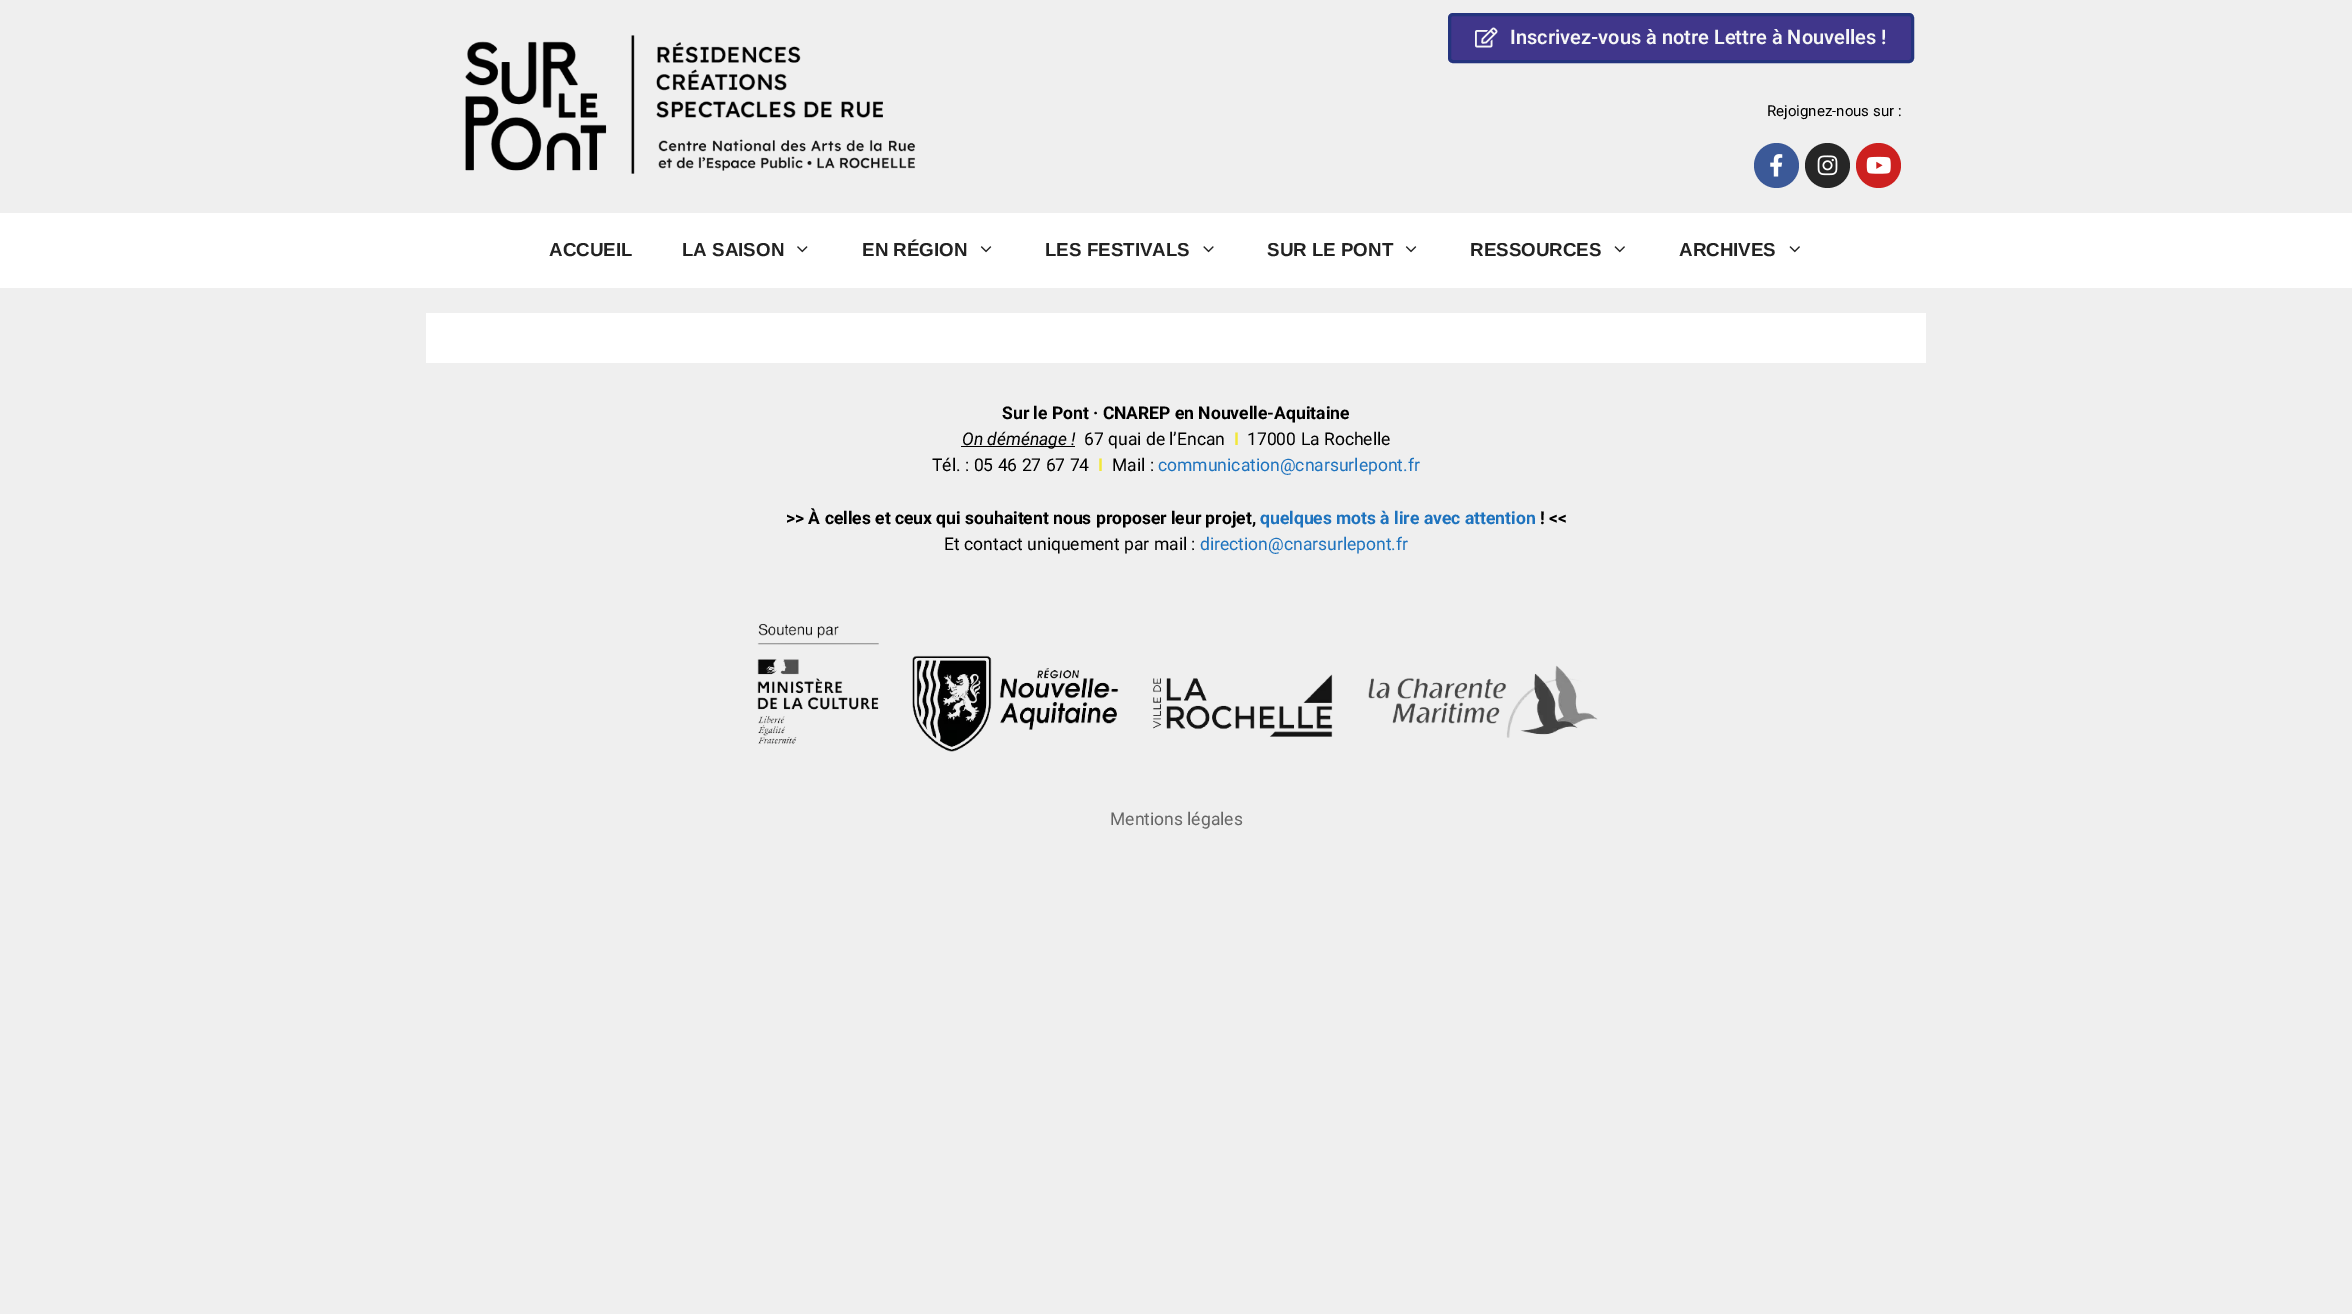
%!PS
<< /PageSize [2352 1314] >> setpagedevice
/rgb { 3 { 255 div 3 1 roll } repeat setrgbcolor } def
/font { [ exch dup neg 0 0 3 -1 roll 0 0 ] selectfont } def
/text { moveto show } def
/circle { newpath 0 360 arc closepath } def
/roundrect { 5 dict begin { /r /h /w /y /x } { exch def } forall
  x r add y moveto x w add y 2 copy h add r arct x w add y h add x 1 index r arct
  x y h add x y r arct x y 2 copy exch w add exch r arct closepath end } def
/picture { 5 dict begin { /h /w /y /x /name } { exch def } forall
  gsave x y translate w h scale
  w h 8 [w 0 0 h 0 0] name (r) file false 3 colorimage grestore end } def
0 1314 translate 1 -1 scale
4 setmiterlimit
239 239 239 rgb
0 0 2352 1314 rectfill
(img_01.rgb) 465 35 451 139 picture
64 54 139 rgb
1449.5 14.5 463 47 3.5 roundrect gsave fill grestore
36 52 126 rgb
3 setlinewidth
stroke
(img_02.rgb) 1475 27 23 21 picture
59 89 152 rgb
1776.5 165.5 22.5 circle fill
(img_03.rgb) 1770 154 13 23 picture
38 38 38 rgb
1827.5 165.5 22.5 circle fill
(img_04.rgb) 1817 155 21 21 picture
205 32 31 rgb
1878.5 165.5 22.5 circle fill
(img_05.rgb) 1866 156 25 18 picture
255 255 255 rgb
0 213 2352 75 rectfill
(img_06.rgb) 797 246 11 7 picture
(img_07.rgb) 980 246 12 7 picture
(img_08.rgb) 1203 246 11 7 picture
(img_07.rgb) 1405 246 12 7 picture
(img_09.rgb) 1614 246 11 7 picture
(img_09.rgb) 1789 246 11 7 picture
426 313 1500 50 rectfill
0 0 0 rgb
961 446 114 1 rectfill
(img_10.rgb) 757 623 841 129 picture
/Roboto-SemiBold 20 font
246 246 246 rgb
(Inscrivez-vous à notre Lettre à Nouvelles !) 1510 44 text
/Roboto-Regular 15 font
0 0 0 rgb
(Rejoignez-nous sur :) 1767 116 text
/LiberationSans-Bold 18.75 font
34 34 34 rgb
(ACCUEIL) 549 256 text
(LA SAISON) 682 256 text
(EN RÉGION) 862 256 text
(LES FESTIVALS) 1045 256 text
(SUR LE PONT) 1267 256 text
(RESSOURCES) 1470 256 text
(ARCHIVES) 1679 256 text
/Roboto-Bold 17.5 font
0 0 0 rgb
(Sur le Pont · CNAREP en Nouvelle-Aquitaine) 1002 419 text
/Roboto-Italic 17.5 font
(On déménage !) 962 445 text
/Roboto-Regular 17.5 font
(67 quai de l’Encan) 1084 445 text
/Roboto-Bold 17.5 font
242 231 56 rgb
(I) 1234 445 text
/Roboto-Regular 17.5 font
0 0 0 rgb
(17000 La Rochelle) 1247 445 text
(Tél. : 05 46 27 67 74) 932 471 text
/Roboto-Bold 17.5 font
242 231 56 rgb
(I) 1098 471 text
/Roboto-Regular 17.5 font
0 0 0 rgb
(Mail :) 1112 471 text
30 115 190 rgb
(communication@cnarsurlepont.fr) 1158 471 text
/Roboto-Bold 17.5 font
0 0 0 rgb
(>> À celles et ceux qui souhaitent nous proposer leur projet,) 786 524 text
30 115 190 rgb
(quelques mots à lire avec attention) 1260 524 text
0 0 0 rgb
(! <<) 1540 524 text
/Roboto-Regular 17.5 font
(Et contact uniquement par mail :) 944 550 text
30 115 190 rgb
(direction@cnarsurlepont.fr) 1200 550 text
102 102 102 rgb
(Mentions légales) 1110 825 text
showpage
